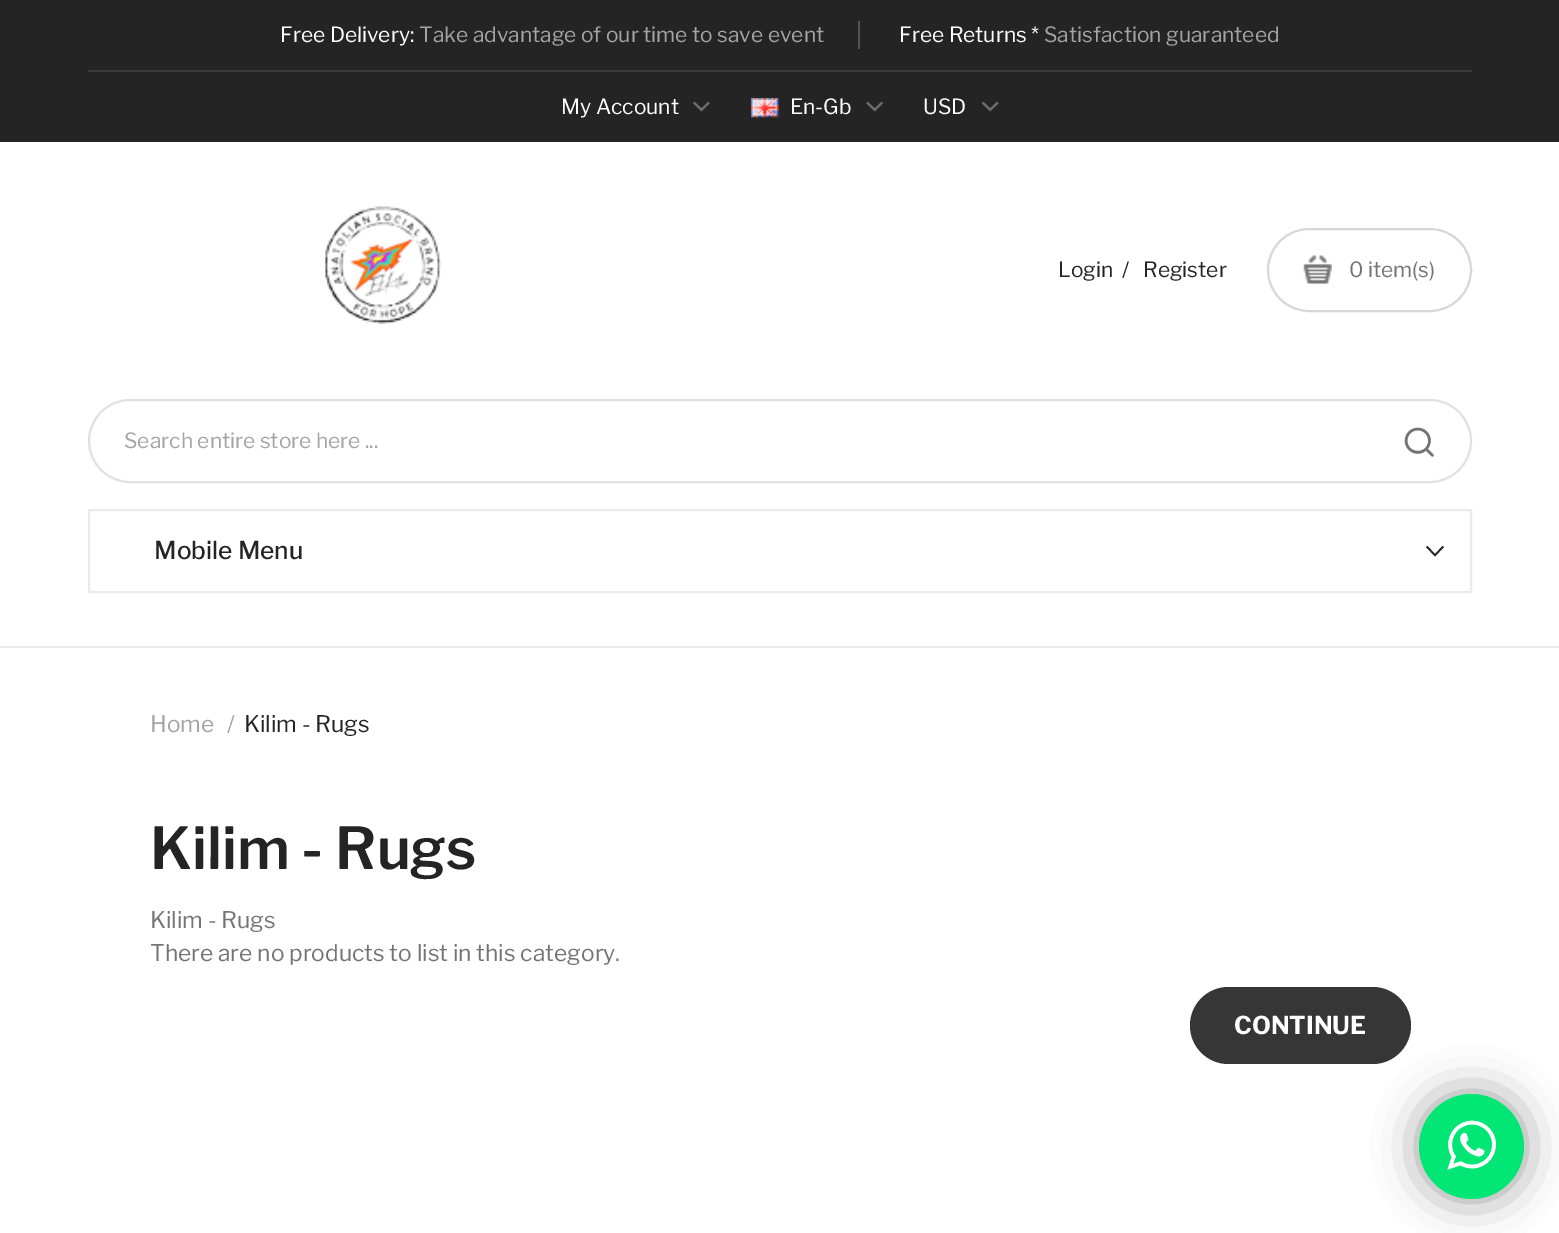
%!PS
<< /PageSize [1559 1233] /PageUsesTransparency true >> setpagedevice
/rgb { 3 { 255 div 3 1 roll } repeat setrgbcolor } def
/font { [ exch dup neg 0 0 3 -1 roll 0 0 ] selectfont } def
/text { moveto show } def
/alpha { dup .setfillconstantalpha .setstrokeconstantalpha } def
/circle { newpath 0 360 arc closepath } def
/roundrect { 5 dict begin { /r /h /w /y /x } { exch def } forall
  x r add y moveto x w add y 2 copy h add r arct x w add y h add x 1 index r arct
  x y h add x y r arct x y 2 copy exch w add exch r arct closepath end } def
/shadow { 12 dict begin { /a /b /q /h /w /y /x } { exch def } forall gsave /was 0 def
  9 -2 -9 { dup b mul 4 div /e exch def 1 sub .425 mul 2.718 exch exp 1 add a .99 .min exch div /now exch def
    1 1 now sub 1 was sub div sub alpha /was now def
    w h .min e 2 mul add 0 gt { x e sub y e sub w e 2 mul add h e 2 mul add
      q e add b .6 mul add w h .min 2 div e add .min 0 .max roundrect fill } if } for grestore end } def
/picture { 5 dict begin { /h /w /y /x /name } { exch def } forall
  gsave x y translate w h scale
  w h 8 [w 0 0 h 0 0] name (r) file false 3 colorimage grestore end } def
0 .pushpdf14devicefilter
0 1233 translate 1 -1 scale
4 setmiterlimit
255 255 255 rgb
0 0 1559 1233 rectfill
36 36 36 rgb
0 0 1559 142 rectfill
58 58 58 rgb
88 70 1384 2 rectfill
85 85 85 rgb
858 21 2 28 rectfill
(img_01.rgb) 693 101 17 11 picture
(img_02.rgb) 750 98 29 20 picture
(img_03.rgb) 866 101 17 11 picture
(img_04.rgb) 981 101 18 11 picture
235 235 235 rgb
0 646 1559 2 rectfill
(img_05.rgb) 324 206 118 119 picture
(img_06.rgb) 1303 255 29 29 picture
215 215 215 rgb
2 setlinewidth
1268 229 203 82 41 roundrect stroke
225 225 225 rgb
89 400 1382 82 41 roundrect stroke
(img_07.rgb) 1404 427 30 30 picture
235 235 235 rgb
89 510 1382 82 rectstroke
36 36 36 rgb
1442.5 546 moveto 1.5 1 rlineto -9 9.5 rlineto -9 -9.5 rlineto 1.5 -1 rlineto 7.5 8 rlineto closepath fill
54 54 54 rgb
1190 987 221 77 38.5 roundrect fill
0 0 0 rgb
1419 1094 105 105 52.5 22 0.4 shadow
1 230 117 rgb
1471.5 1146.5 52.5 circle fill
(img_08.rgb) 1447 1120 49 50 picture
/LibreFranklin-Regular 21 font
255 255 255 rgb
(Free Delivery:) 280 42 text
164 164 164 rgb
(Take advantage of our time to save event) 419 42 text
255 255 255 rgb
(Free Returns *) 899 42 text
164 164 164 rgb
(Satisfaction guaranteed) 1044 42 text
255 255 255 rgb
(My Account) 561 114 text
(En-Gb) 790 114 text
(USD) 923 114 text
36 36 36 rgb
(Login) 1058 277 text
(/) 1122 277 text
(Register) 1143 277 text
116 116 116 rgb
(0 item\(s\)) 1349 277 text
164 164 164 rgb
(Search entire store here ...) 124 448 text
/LibreFranklin-Medium 24.5 font
36 36 36 rgb
(Mobile Menu) 154 559 text
/LibreFranklin-Regular 22.75 font
164 164 164 rgb
(Home) 150 732 text
(/) 227 732 text
36 36 36 rgb
(Kilim - Rugs) 244 732 text
/LibreFranklin-SemiBold 57.75 font
(Kilim - Rugs) 150 869 text
/LibreFranklin-Regular 22.75 font
116 116 116 rgb
(Kilim - Rugs) 150 928 text
(There are no products to list in this category.) 150 961 text
/LibreFranklin-Bold 24.5 font
255 255 255 rgb
(CONTINUE) 1234 1034 text
.poppdf14devicefilter showpage
